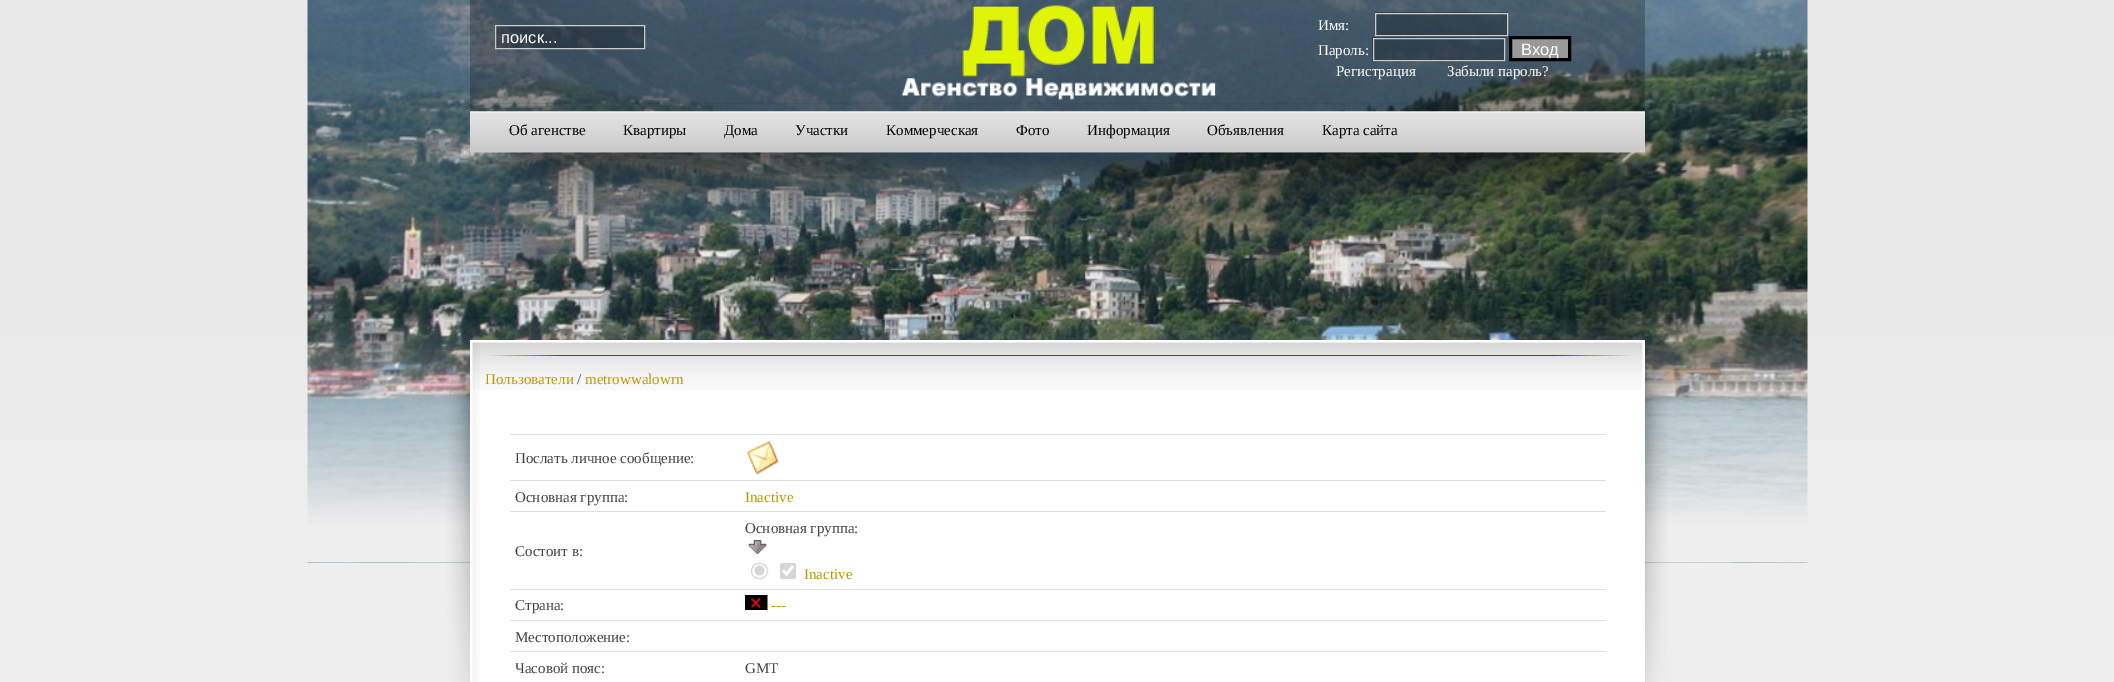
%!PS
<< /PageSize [2114 682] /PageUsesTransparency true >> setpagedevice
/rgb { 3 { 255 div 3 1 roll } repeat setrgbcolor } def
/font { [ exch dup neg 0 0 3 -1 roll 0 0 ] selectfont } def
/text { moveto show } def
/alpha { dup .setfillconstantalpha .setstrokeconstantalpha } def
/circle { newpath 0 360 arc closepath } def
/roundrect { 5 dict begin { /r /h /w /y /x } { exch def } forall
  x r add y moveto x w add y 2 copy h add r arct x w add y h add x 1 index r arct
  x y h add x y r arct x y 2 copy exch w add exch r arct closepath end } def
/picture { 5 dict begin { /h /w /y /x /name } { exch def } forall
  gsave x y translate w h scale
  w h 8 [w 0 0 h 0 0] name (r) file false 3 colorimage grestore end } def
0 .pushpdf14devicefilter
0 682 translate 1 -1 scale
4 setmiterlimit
238 238 238 rgb
0 0 2114 682 rectfill
233 233 233 rgb
0 0 2114 563 rectfill
(img_01.rgb) 307 0 1501 563 picture
(img_02.rgb) 0 319 2114 244 picture
0.25 alpha
0 0 0 rgb
470 0 1175 104 rectfill
1 alpha
(img_03.rgb) 901 5 315 95 picture
0.25 alpha
495.5 25.5 moveto 149 0 rlineto 0 23 rlineto -149 0 rlineto closepath fill
1 alpha
204 204 204 rgb
495.5 25.5 moveto 149 0 rlineto 0 23 rlineto -149 0 rlineto closepath stroke
0.25 alpha
0 0 0 rgb
1375 12 133 25 rectfill
1 alpha
204 204 204 rgb
1375.5 13.5 132 22 rectstroke
0.25 alpha
0 0 0 rgb
1372 37 133 25 rectfill
1 alpha
204 204 204 rgb
1373.5 38.5 131 22 rectstroke
153 153 153 rgb
1510.5 37.5 moveto 59 0 rlineto 0 22 rlineto -59 0 rlineto closepath gsave fill grestore
0 0 0 rgb
3 setlinewidth
stroke
(img_04.rgb) 470 103 1175 50 picture
(img_05.rgb) 477 152 161 64 picture
(img_07.rgb) 1477 152 164 59 picture
(img_06.rgb) 637 152 841 64 picture
(img_08.rgb) 447 349 23 333 picture
(img_09.rgb) 1645 354 23 328 picture
255 255 255 rgb
470 340 1175 342 rectfill
(img_10.rgb) 472 342 1171 48 picture
(img_11.rgb) 472 342 8 340 picture
61 95 0 rgb
485 355 1145 1 rectfill
(img_12.rgb) 485 355 75 1 picture
(img_13.rgb) 1556 355 74 1 picture
224 224 224 rgb
510 434 1096 1 rectfill
(img_14.rgb) 746 440 33 35 picture
510 480 1096 1 rectfill
510 511 1096 1 rectfill
(img_15.rgb) 748 540 19 14 picture
214 214 214 rgb
1 setlinewidth
751.5 563.5 16 15 7.5 roundrect stroke
759.5 570.5 5 circle fill
780 563 16 16 2.5 roundrect fill
255 255 255 rgb
2.6 setlinewidth
783 570.5 moveto 3.5 3.5 rlineto 6.5 -8 rlineto stroke
224 224 224 rgb
510 589 1096 1 rectfill
(img_16.rgb) 745 595 23 15 picture
510 620 1096 1 rectfill
510 651 1096 1 rectfill
/LiberationSans-Regular 16.5 font
255 255 255 rgb
(поиск...) 501 43 text
/LiberationSerif-Regular 15 font
(Имя:) 1318 30 text
(Пароль:) 1318 55 text
/LiberationSans-Regular 16.5 font
(Вход) 1521 55 text
/LiberationSerif-Regular 15 font
(Регистрация) 1336 76 text
(Забыли пароль?) 1447 76 text
0 0 0 rgb
(Об агенстве) 509 135 text
(Квартиры) 623 135 text
(Дома) 724 135 text
(Участки) 795 135 text
(Коммерческая) 886 135 text
(Фото) 1016 135 text
(Информация) 1087 135 text
(Объявления) 1207 135 text
(Карта сайта) 1322 135 text
187 154 0 rgb
(Пользователи) 485 384 text
68 68 68 rgb
(/) 577 384 text
187 154 0 rgb
(metrowwalowrn) 585 384 text
68 68 68 rgb
(Послать личное сообщение:) 515 463 text
(Основная группа:) 515 502 text
187 154 0 rgb
(Inactive) 745 502 text
68 68 68 rgb
(Состоит в:) 515 556 text
(Основная группа:) 745 533 text
187 154 0 rgb
(Inactive) 804 579 text
68 68 68 rgb
(Страна:) 515 610 text
187 154 0 rgb
(---) 771 610 text
68 68 68 rgb
(Местоположение:) 515 642 text
(Часовой пояс:) 515 673 text
(GMT) 745 673 text
.poppdf14devicefilter showpage
